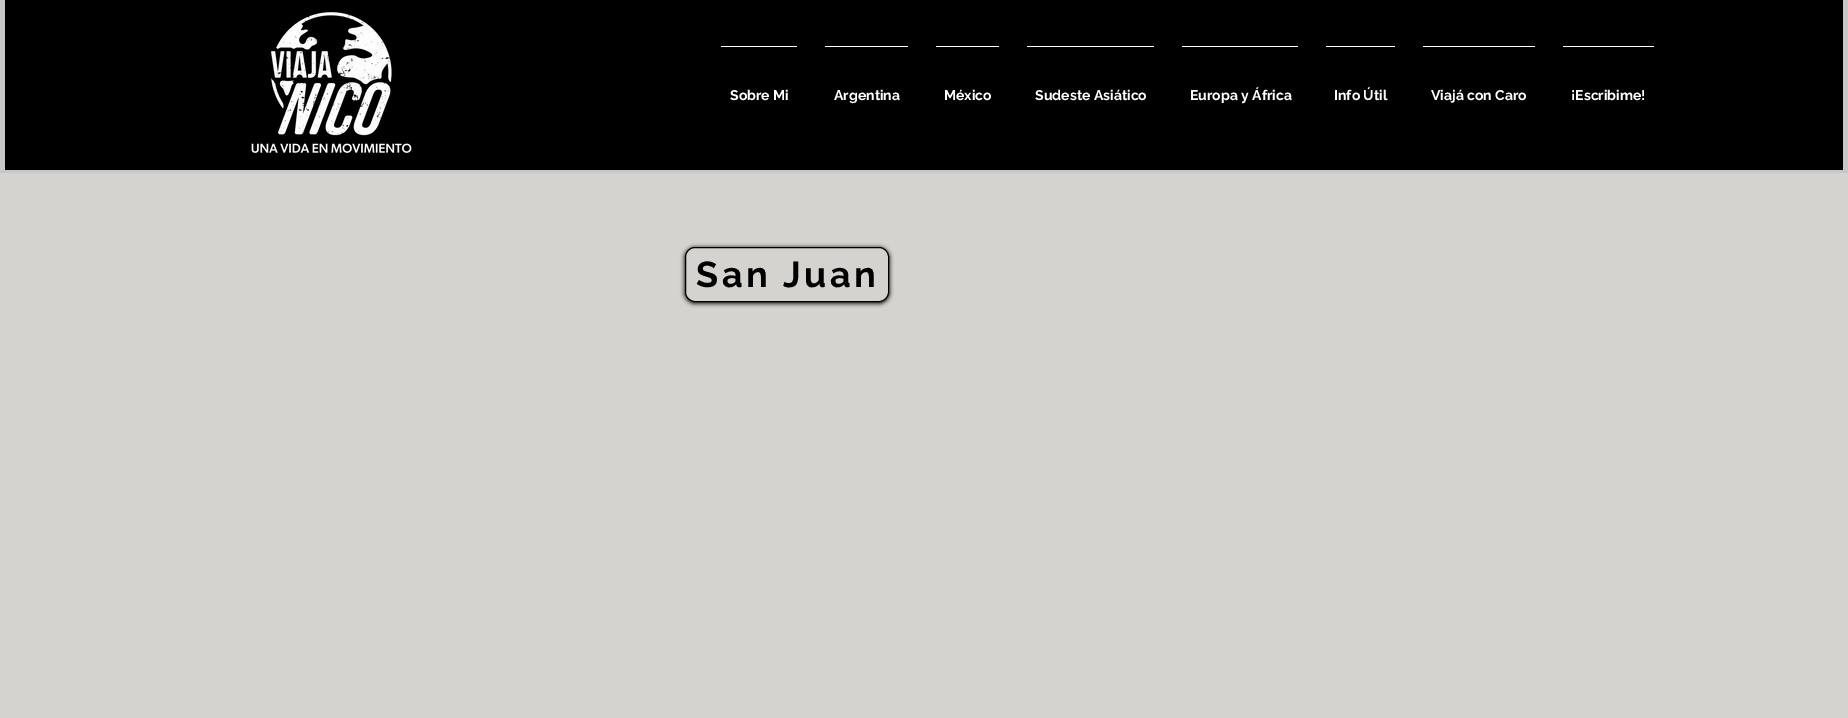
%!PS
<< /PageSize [1848 718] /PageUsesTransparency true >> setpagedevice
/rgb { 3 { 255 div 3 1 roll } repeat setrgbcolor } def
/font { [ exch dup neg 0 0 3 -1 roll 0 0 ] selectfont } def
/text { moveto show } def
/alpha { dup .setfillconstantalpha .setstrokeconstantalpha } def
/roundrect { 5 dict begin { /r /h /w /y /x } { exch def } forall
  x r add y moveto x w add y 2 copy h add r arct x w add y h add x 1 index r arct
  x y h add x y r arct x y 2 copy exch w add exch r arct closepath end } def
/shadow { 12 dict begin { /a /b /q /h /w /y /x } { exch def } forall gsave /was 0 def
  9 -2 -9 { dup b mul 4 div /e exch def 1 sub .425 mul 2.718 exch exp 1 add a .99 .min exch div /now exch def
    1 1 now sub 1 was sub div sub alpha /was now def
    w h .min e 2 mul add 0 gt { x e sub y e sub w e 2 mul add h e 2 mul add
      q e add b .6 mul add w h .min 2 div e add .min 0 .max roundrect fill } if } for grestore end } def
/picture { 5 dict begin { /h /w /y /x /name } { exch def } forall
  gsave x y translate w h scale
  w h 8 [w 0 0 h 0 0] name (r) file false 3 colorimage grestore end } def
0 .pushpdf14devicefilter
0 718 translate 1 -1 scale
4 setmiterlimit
199 199 199 rgb
0 0 1848 718 rectfill
0 0 0 rgb
5 0 1838 170 rectfill
(img_01.rgb) 251 12 161 141 picture
255 255 255 rgb
721 46 76 1 rectfill
825 46 83 1 rectfill
936 46 63 1 rectfill
1027 46 127 1 rectfill
1182 46 116 1 rectfill
1326 46 69 1 rectfill
1423 46 112 1 rectfill
1563 46 91 1 rectfill
212 211 207 rgb
0 173 1848 545 rectfill
gsave
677 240 moveto 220 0 rlineto 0 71 rlineto -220 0 rlineto closepath 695 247 moveto 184 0 rlineto 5.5 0 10 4.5 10 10 rcurveto 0 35 rlineto 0 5.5 -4.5 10 -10 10 rcurveto -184 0 rlineto -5.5 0 -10 -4.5 -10 -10 rcurveto 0 -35 rlineto 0 -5.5 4.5 -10 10 -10 rcurveto closepath eoclip newpath
0 0 0 rgb
684 247 206 57 11 2 0.8 shadow
grestore
0.62 alpha
685.5 247.5 203 54 9.5 roundrect fill
1 alpha
0 0 0 rgb
685.5 247.5 203 54 9.5 roundrect stroke
/Raleway-Bold 14 font
255 255 255 rgb
(Sobre Mi) 730 100 text
(Argentina) 834 100 text
(México) 944 100 text
(Sudeste Asiático) 1035 100 text
(Europa y África) 1190 100 text
(Info Útil) 1334 100 text
(Viajá con Caro) 1431 100 text
(¡Escribime!) 1571 100 text
/Raleway-Bold 36 font
0 0 0 rgb
696 287 moveto 3.5 0 (San Juan) ashow
.poppdf14devicefilter showpage
